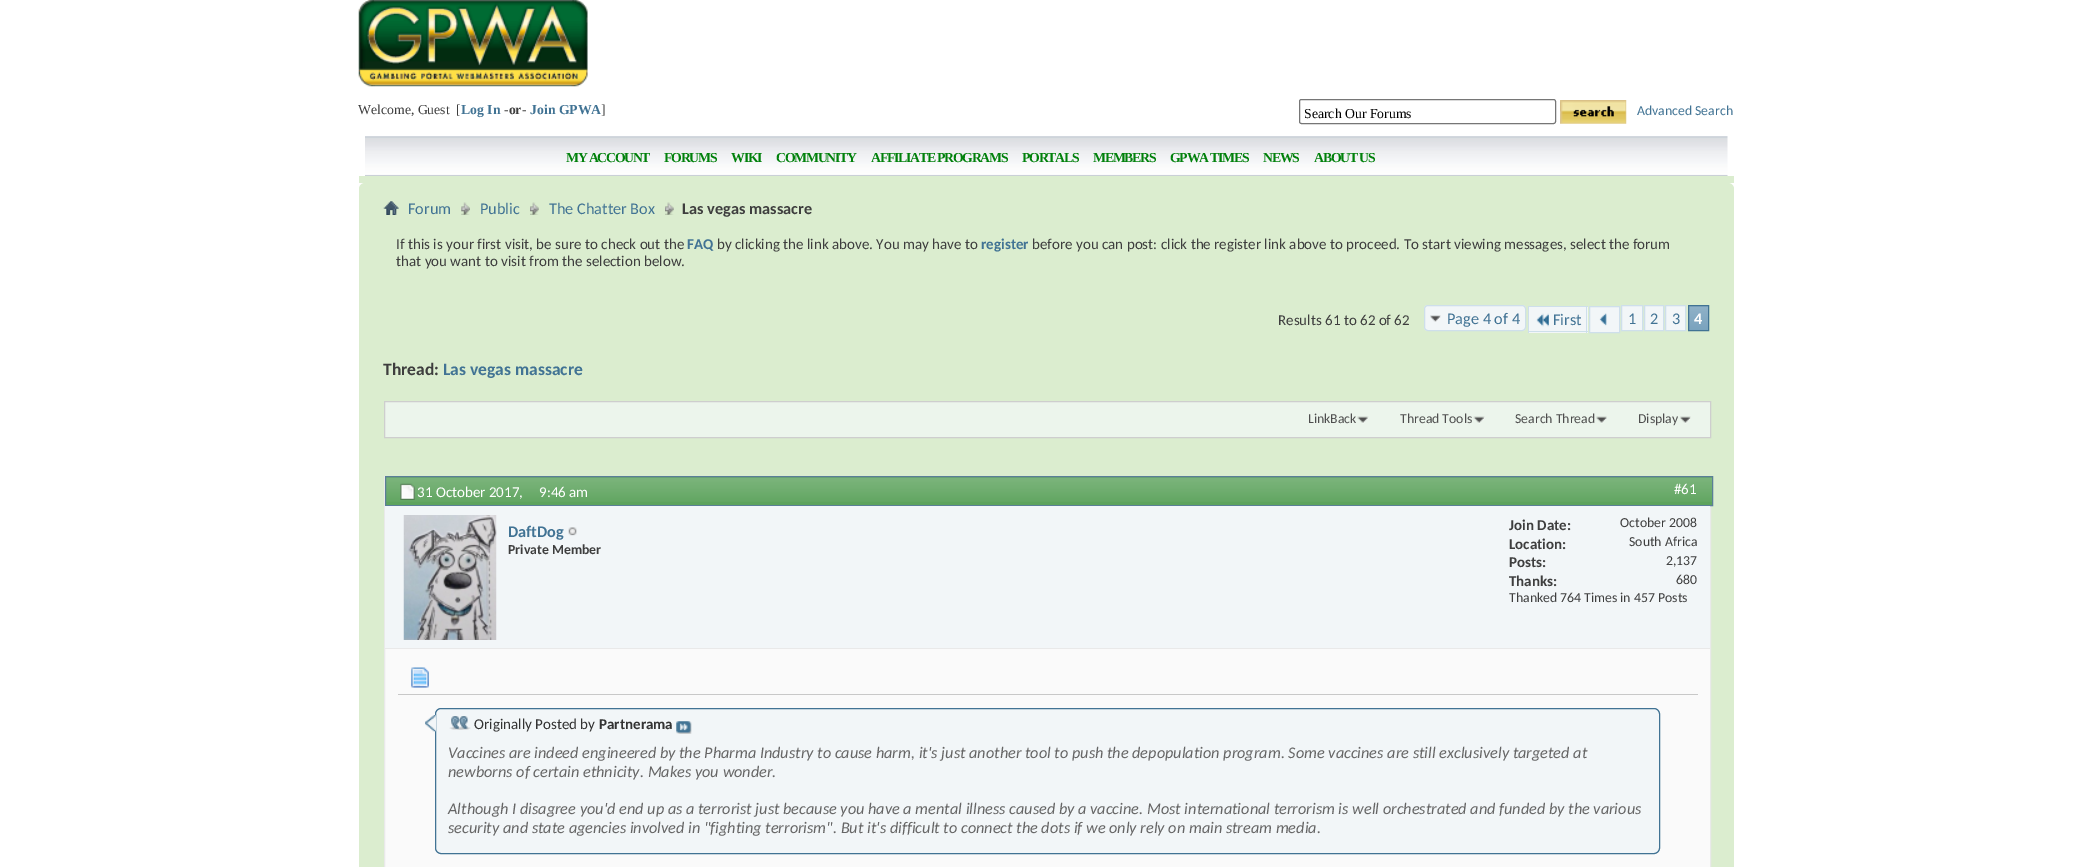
%!PS
<< /PageSize [2091 867] >> setpagedevice
/rgb { 3 { 255 div 3 1 roll } repeat setrgbcolor } def
/font { [ exch dup neg 0 0 3 -1 roll 0 0 ] selectfont } def
/text { moveto show } def
/roundrect { 5 dict begin { /r /h /w /y /x } { exch def } forall
  x r add y moveto x w add y 2 copy h add r arct x w add y h add x 1 index r arct
  x y h add x y r arct x y 2 copy exch w add exch r arct closepath end } def
/picture { 5 dict begin { /h /w /y /x /name } { exch def } forall
  gsave x y translate w h scale
  w h 8 [w 0 0 h 0 0] name (r) file false 3 colorimage grestore end } def
0 867 translate 1 -1 scale
4 setmiterlimit
255 255 255 rgb
0 0 2091 867 rectfill
(img_01.rgb) 358 0 230 87 picture
118 118 118 rgb
1299.5 99.5 256 24 2 roundrect stroke
(img_02.rgb) 1560 100 67 24 picture
(img_03.rgb) 365 136 1363 40 picture
219 237 207 rgb
359 176 1375 7 rectfill
359 183 1375 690 6 roundrect fill
(img_04.rgb) 383 201 16 14 picture
(img_05.rgb) 461 202 9 13 picture
(img_06.rgb) 530 202 9 13 picture
(img_07.rgb) 665 202 9 13 picture
242 246 248 rgb
1424 305 102 26 4 roundrect fill
(img_08.rgb) 1430 315 11 7 picture
206 223 235 rgb
1424.5 305.5 101 25 3.5 roundrect stroke
242 246 248 rgb
1529 307 59 26 rectfill
(img_09.rgb) 1536 313 13 14 picture
206 223 235 rgb
1528 306 60 1 rectfill
1528 331 25 1 rectfill
1528 306 1 27 rectfill
1586 306 1 27 rectfill
1553 331 35 1 rectfill
242 246 248 rgb
1589.5 306.5 moveto 30 0 rlineto 0 26 rlineto -30 0 rlineto closepath gsave fill grestore
206 223 235 rgb
stroke
(img_10.rgb) 1599 313 8 13 picture
242 246 248 rgb
1621.5 305.5 moveto 21 0 rlineto 0 25 rlineto -21 0 rlineto closepath gsave fill grestore
206 223 235 rgb
stroke
242 246 248 rgb
1644.5 305.5 moveto 19 0 rlineto 0 25 rlineto -19 0 rlineto closepath gsave fill grestore
206 223 235 rgb
stroke
242 246 248 rgb
1665.5 305.5 moveto 20 0 rlineto 0 25 rlineto -20 0 rlineto closepath gsave fill grestore
206 223 235 rgb
stroke
117 159 187 rgb
1689 306 19 24 rectfill
(img_11.rgb) 1687 306 21 24 picture
65 115 148 rgb
1688.5 305.5 20 25 rectstroke
236 245 236 rgb
384.5 401.5 moveto 1326 0 rlineto 0 36 rlineto -1326 0 rlineto closepath gsave fill grestore
206 206 206 rgb
stroke
(img_12.rgb) 1357 416 12 8 picture
(img_13.rgb) 1473 416 12 8 picture
(img_14.rgb) 1596 416 11 8 picture
(img_15.rgb) 1680 416 11 8 picture
250 250 250 rgb
385 649 1325 218 rectfill
233 233 233 rgb
384.5 476.5 1326 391 rectstroke
93 163 93 rgb
386 477 1326 28 rectfill
(img_16.rgb) 386 477 1326 25 picture
90 127 151 rgb
385.5 476.5 1327 29 rectstroke
(img_17.rgb) 400 483 15 17 picture
242 246 248 rgb
385 506 1325 142 rectfill
233 233 233 rgb
385 648 1325 1 rectfill
(img_18.rgb) 403 515 94 125 picture
(img_19.rgb) 568 527 9 9 picture
200 200 200 rgb
398 694 1300 1 rectfill
(img_20.rgb) 411 667 18 21 picture
242 246 248 rgb
435.5 708.5 1224 145 5.5 roundrect gsave fill grestore
65 115 148 rgb
stroke
(img_21.rgb) 425 715 11 17 picture
(img_22.rgb) 449 716 22 14 picture
(img_23.rgb) 676 721 16 13 picture
/LiberationSerif-Regular 13.75 font
62 62 62 rgb
(Welcome, Guest  [) 358 114 text
/LiberationSerif-Bold 13.75 font
65 115 148 rgb
(Log In) 461 114 text
62 62 62 rgb
(-or-) 504 114 text
65 115 148 rgb
(Join GPWA) 530 114 text
/LiberationSerif-Regular 13.75 font
62 62 62 rgb
(]) 601 114 text
0 0 0 rgb
(Search Our Forums) 1304 118 text
/Carlito-Regular 13.75 font
65 115 148 rgb
(Advanced Search) 1637 115 text
/LiberationSerif-Bold 13.75 font
1 129 11 rgb
566 162 moveto -1.25 0 (MY ACCOUNT) ashow
664 162 moveto -1.25 0 (FORUMS) ashow
731 162 moveto -1.25 0 (WIKI) ashow
776 162 moveto -1.25 0 (COMMUNITY) ashow
871 162 moveto -1.25 0 (AFFILIATE PROGRAMS) ashow
1022 162 moveto -1.25 0 (PORTALS) ashow
1093 162 moveto -1.25 0 (MEMBERS) ashow
1170 162 moveto -1.25 0 (GPWA TIMES) ashow
1263 162 moveto -1.25 0 (NEWS) ashow
1314 162 moveto -1.25 0 (ABOUT US) ashow
/Carlito-Regular 16.25 font
65 115 148 rgb
(Forum) 408 214 text
(Public) 480 214 text
(The Chatter Box) 549 214 text
/Carlito-Bold 16.25 font
62 62 62 rgb
(Las vegas massacre) 682 214 text
/Carlito-Regular 15 font
(If this is your first visit, be sure to check out the) 396 249 text
/Carlito-Bold 15 font
65 115 148 rgb
(FAQ) 687 249 text
/Carlito-Regular 15 font
62 62 62 rgb
(by clicking the link above. You may have to) 717 249 text
/Carlito-Bold 15 font
65 115 148 rgb
(register) 981 249 text
/Carlito-Regular 15 font
62 62 62 rgb
(before you can post: click the register link above to proceed. To start viewing messages, select the forum) 1032 249 text
(that you want to visit from the selection below.) 396 266 text
(Results 61 to 62 of 62) 1278 325 text
/Carlito-Regular 16.25 font
65 115 148 rgb
(Page 4 of 4) 1447 324 text
(First) 1553 325 text
(1) 1628 324 text
(2) 1650 324 text
(3) 1672 324 text
/Carlito-Bold 16.25 font
255 255 255 rgb
(4) 1694 324 text
/Carlito-Bold 17.5 font
62 62 62 rgb
(Thread:) 383 375 text
65 115 148 rgb
(Las vegas massacre) 443 375 text
/Carlito-Regular 13.75 font
78 78 78 rgb
(LinkBack) 1308 423 text
(Thread Tools) 1400 423 text
(Search Thread) 1515 423 text
(Display) 1638 423 text
/Carlito-Regular 15 font
255 255 255 rgb
(31 October 2017,) 417 497 text
(9:46 am) 539 497 text
(#61) 1674 494 text
/Carlito-Bold 16.25 font
65 115 148 rgb
(DaftDog) 508 537 text
/Carlito-Bold 13.75 font
62 62 62 rgb
(Private Member) 508 554 text
/Carlito-Bold 15 font
(Join Date:) 1509 530 text
/Carlito-Regular 13.75 font
(October 2008) 1620 527 text
/Carlito-Bold 15 font
(Location:) 1509 549 text
/Carlito-Regular 13.75 font
(South Africa) 1629 546 text
/Carlito-Bold 15 font
(Posts:) 1509 567 text
/Carlito-Regular 13.75 font
(2,137) 1666 565 text
/Carlito-Bold 15 font
(Thanks:) 1509 586 text
/Carlito-Regular 13.75 font
(680) 1676 584 text
(Thanked 764 Times in 457 Posts) 1509 602 text
/Carlito-Regular 15 font
51 51 51 rgb
(Originally Posted by) 474 729 text
/Carlito-Bold 15 font
(Partnerama) 599 729 text
/Carlito-Italic 16.25 font
102 102 102 rgb
(Vaccines are indeed engineered by the Pharma Industry to cause harm, it's just another tool to push the depopulation program. Some vaccines are still exclusively targeted at) 448 758 text
(newborns of certain ethnicity. Makes you wonder.) 448 777 text
(Although I disagree you'd end up as a terrorist just because you have a mental illness caused by a vaccine. Most international terrorism is well orchestrated and funded by the various) 448 814 text
(security and state agencies involved in "fighting terrorism". But it's difficult to connect the dots if we only rely on main stream media.) 448 833 text
showpage
